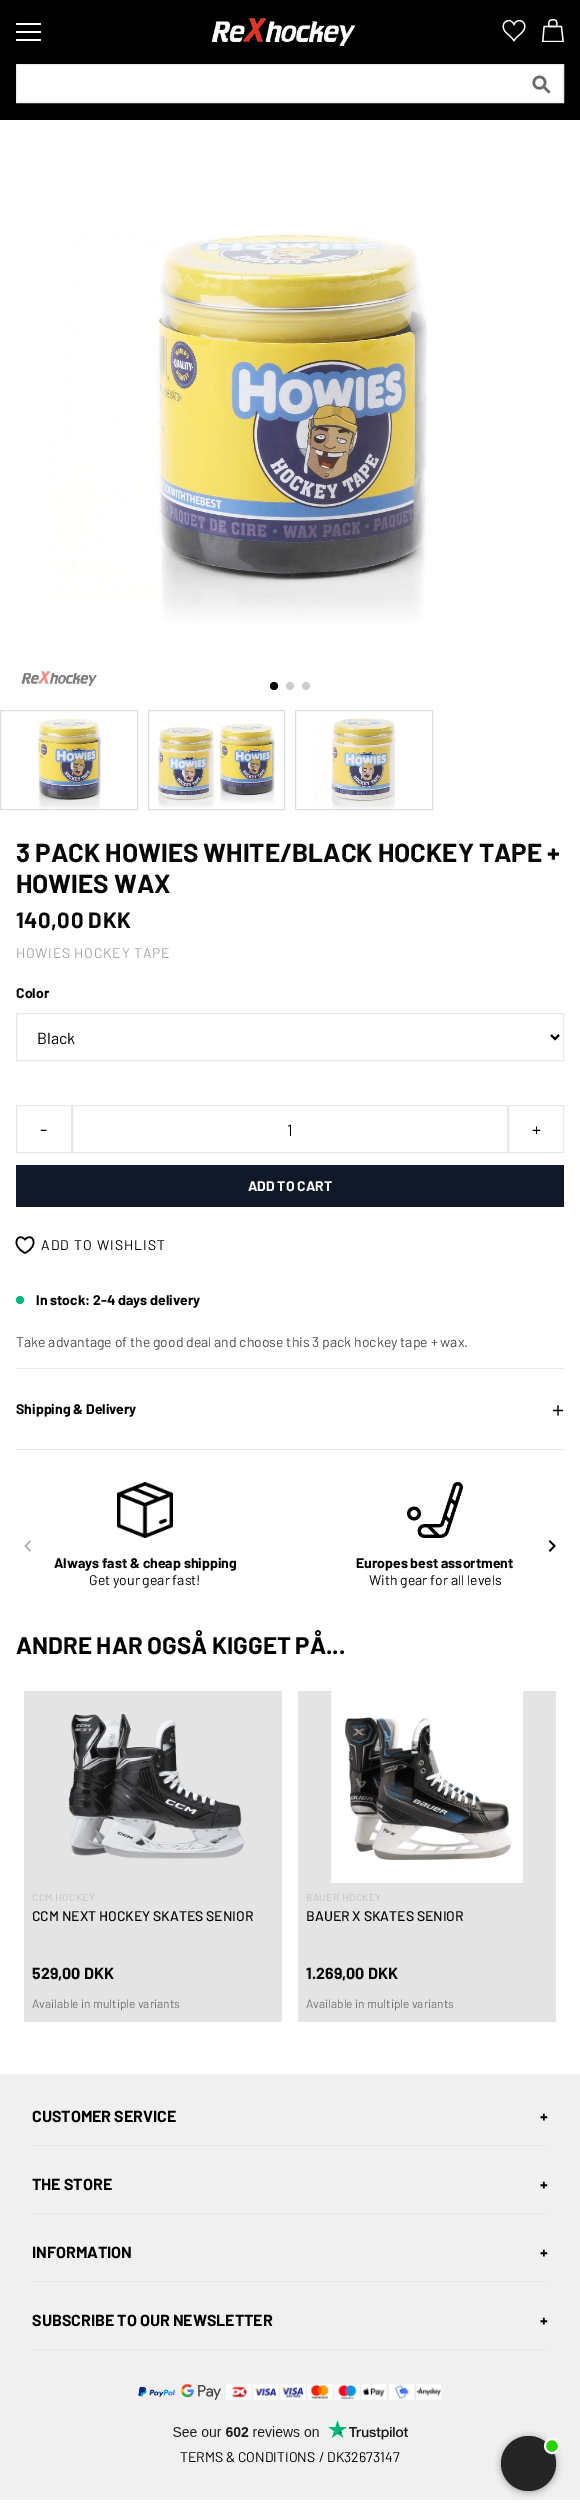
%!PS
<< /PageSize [580 2511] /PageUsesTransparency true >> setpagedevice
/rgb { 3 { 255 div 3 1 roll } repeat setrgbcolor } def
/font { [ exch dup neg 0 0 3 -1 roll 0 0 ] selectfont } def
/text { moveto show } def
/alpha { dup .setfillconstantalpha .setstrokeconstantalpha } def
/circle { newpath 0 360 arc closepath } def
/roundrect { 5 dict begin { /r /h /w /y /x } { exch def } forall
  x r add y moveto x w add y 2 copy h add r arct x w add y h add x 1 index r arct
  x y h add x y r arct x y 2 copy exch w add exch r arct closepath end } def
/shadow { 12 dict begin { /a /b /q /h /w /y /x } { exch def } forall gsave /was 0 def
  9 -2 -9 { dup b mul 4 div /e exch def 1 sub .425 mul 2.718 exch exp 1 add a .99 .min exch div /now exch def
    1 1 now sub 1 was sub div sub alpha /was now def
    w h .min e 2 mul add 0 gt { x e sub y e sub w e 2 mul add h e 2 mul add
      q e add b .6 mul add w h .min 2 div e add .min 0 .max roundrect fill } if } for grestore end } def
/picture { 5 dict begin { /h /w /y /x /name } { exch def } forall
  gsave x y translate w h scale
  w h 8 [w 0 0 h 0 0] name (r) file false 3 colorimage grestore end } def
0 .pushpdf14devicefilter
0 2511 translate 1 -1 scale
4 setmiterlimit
255 255 255 rgb
0 0 580 2511 rectfill
0 0 0 rgb
0 0 580 120 rectfill
255 255 255 rgb
16 23 25 2 1 roundrect fill
16 31 25 2 1 roundrect fill
16 39 25 2 1 roundrect fill
(img_01.rgb) 212 18 143 28 picture
(img_02.rgb) 502 19 24 23 picture
(img_03.rgb) 542 19 22 23 picture
16.5 64.5 moveto 547 0 rlineto 0 38 rlineto -547 0 rlineto closepath gsave fill grestore
236 236 236 rgb
stroke
(img_04.rgb) 21 233 407 454 picture
0 0 0 rgb
274 686 4 circle fill
204 204 204 rgb
290 686 4 circle fill
306 686 4 circle fill
221 221 221 rgb
0.5 710.5 137 99 rectstroke
(img_05.rgb) 38 718 63 91 picture
148.5 710.5 136 99 rectstroke
(img_06.rgb) 157 723 118 85 picture
295.5 710.5 137 99 rectstroke
(img_07.rgb) 314 718 87 91 picture
229 231 235 rgb
16.5 1013.5 547 47 rectstroke
0 0 0 rgb
2 setlinewidth
551 1035 moveto 4 4 rlineto 4 -4 rlineto stroke
229 231 235 rgb
1 setlinewidth
16.5 1105.5 55 47 rectstroke
72.5 1105.5 435 47 rectstroke
508.5 1105.5 55 47 rectstroke
17 24 39 rgb
16 1165 548 42 rectfill
0 0 0 rgb
1.5 setlinewidth
25 1253 moveto -15 -7.5 -7.5 -21.5 0 -13.5 rcurveto 7.5 -8 15 6 0 13.5 rcurveto closepath stroke
0 182 122 rgb
20 1300 4 circle fill
229 231 235 rgb
16 1368 548 1 rectfill
16 1449 548 1 rectfill
(img_08.rgb) 24 1540 8 12 picture
(img_09.rgb) 548 1540 8 12 picture
(img_10.rgb) 117 1482 56 56 picture
(img_11.rgb) 407 1482 56 56 picture
228 228 228 rgb
24 1691 258 331 rectfill
(img_12.rgb) 68 1713 177 146 picture
298 1691 258 331 rectfill
(img_13.rgb) 331 1691 192 192 picture
240 240 240 rgb
0 2074 580 426 rectfill
229 231 235 rgb
32 2145 516 1 rectfill
32 2213 516 1 rectfill
32 2281 516 1 rectfill
32 2349 516 1 rectfill
(img_14.rgb) 138 2387 37 10 picture
(img_15.rgb) 181 2384 40 16 picture
(img_16.rgb) 226 2384 216 16 picture
(img_17.rgb) 173 2420 235 20 picture
0 0 0 rgb
501 2437 55 55 27.5 3.5 0.35 shadow
37 37 37 rgb
528.5 2463.5 27.5 circle fill
37 211 0 rgb
552 2446 7 circle gsave fill grestore
255 255 255 rgb
2 setlinewidth
stroke
/DejaVuSans-Bold 24 font
105 105 105 rgb
gsave 541 97 translate -45 rotate 0 0 moveto (⚲) show grestore
/Barlow-Bold 26 font
8 8 8 rgb
(3 PACK HOWIES WHITE/BLACK HOCKEY TAPE +) 16 862 text
(HOWIES WAX) 16 893 text
/Barlow-Bold 22 font
16 928 moveto 0.5 0 (140,00 DKK) ashow
/Barlow-Regular 14 font
165 165 165 rgb
16 958 moveto 0.75 0 (HOWIES HOCKEY TAPE) ashow
/Barlow-Bold 14 font
0 0 0 rgb
(Color) 16 998 text
/Barlow-Regular 16 font
(Black) 37 1044 text
/Barlow-Regular 18 font
(-) 40 1136 text
/Barlow-Regular 16 font
(1) 287 1136 text
/Barlow-Regular 18 font
(+) 532 1136 text
/Barlow-Bold 14 font
255 255 255 rgb
(ADD TO CART) 248 1191 text
/Barlow-Regular 14 font
0 0 0 rgb
41 1250 moveto 1.1 0 (ADD TO WISHLIST) ashow
/Barlow-Bold 14 font
(In stock: 2-4 days delivery) 36 1305 text
/Barlow-Regular 14 font
77 77 77 rgb
(Take advantage of the good deal and choose this 3 pack hockey tape + wax.) 16 1347 text
/Barlow-Bold 14 font
0 0 0 rgb
(Shipping & Delivery) 16 1414 text
/Barlow-Regular 24 font
(+) 552 1418 text
/Barlow-Bold 14 font
(Always fast & cheap shipping) 54 1568 text
/Barlow-Regular 14 font
(Get your gear fast!) 89 1585 text
/Barlow-Bold 14 font
(Europes best assortment) 356 1568 text
/Barlow-Regular 14 font
(With gear for all levels) 369 1585 text
/Barlow-Bold 24 font
(ANDRE HAR OGSÅ KIGGET PÅ...) 16 1654 text
/Barlow-Regular 10 font
193 193 193 rgb
32 1901 moveto 0.5 0 (CCM HOCKEY) ashow
/Barlow-Medium 14 font
8 8 8 rgb
(CCM NEXT HOCKEY SKATES SENIOR) 32 1921 text
/Barlow-Bold 16 font
(529,00 DKK) 32 1979 text
/Barlow-Regular 12 font
114 114 114 rgb
(Available in multiple variants) 32 2008 text
/Barlow-Regular 10 font
193 193 193 rgb
306 1901 moveto 0.5 0 (BAUER HOCKEY) ashow
/Barlow-Medium 14 font
8 8 8 rgb
(BAUER X SKATES SENIOR) 306 1921 text
/Barlow-Bold 16 font
(1.269,00 DKK) 306 1979 text
/Barlow-Regular 12 font
114 114 114 rgb
(Available in multiple variants) 306 2008 text
/Barlow-Bold 16 font
0 0 0 rgb
(CUSTOMER SERVICE) 32 2122 text
(+) 540 2122 text
(THE STORE) 32 2190 text
(+) 540 2190 text
(INFORMATION) 32 2258 text
(+) 540 2258 text
(SUBSCRIBE TO OUR NEWSLETTER) 32 2326 text
(+) 540 2326 text
/Barlow-Regular 14 font
(TERMS & CONDITIONS) 180 2462 text
(/) 319 2462 text
(DK32673147) 327 2462 text
.poppdf14devicefilter showpage
